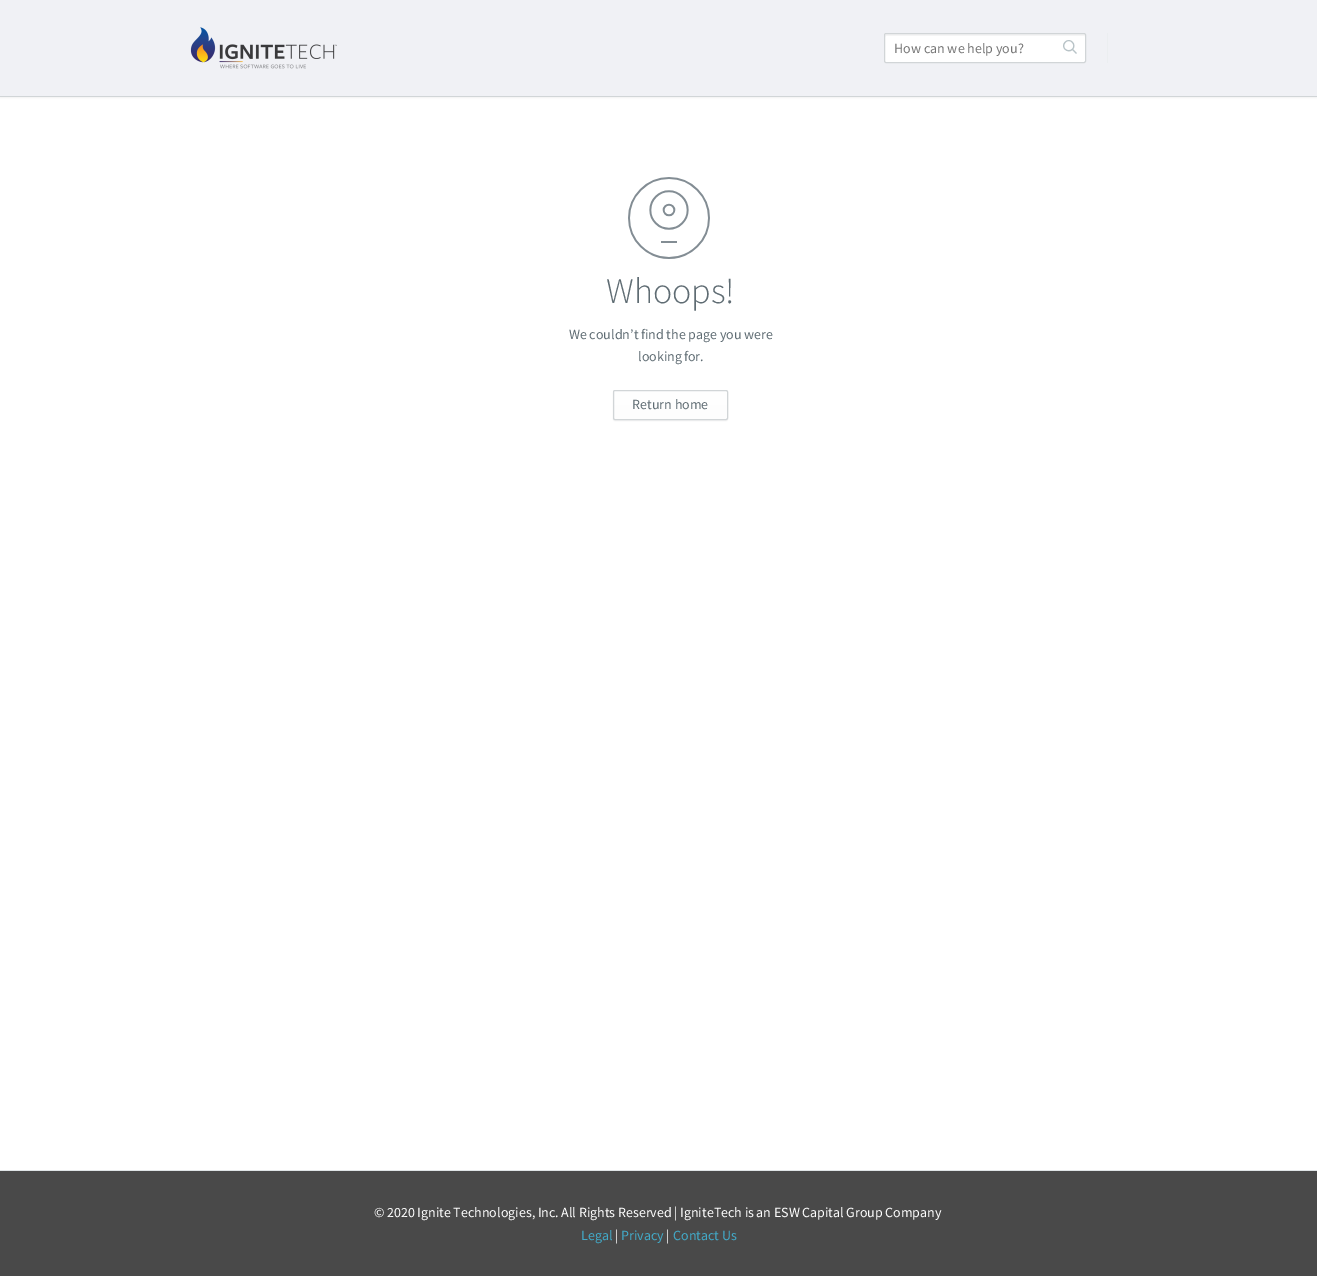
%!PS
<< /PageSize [1317 1276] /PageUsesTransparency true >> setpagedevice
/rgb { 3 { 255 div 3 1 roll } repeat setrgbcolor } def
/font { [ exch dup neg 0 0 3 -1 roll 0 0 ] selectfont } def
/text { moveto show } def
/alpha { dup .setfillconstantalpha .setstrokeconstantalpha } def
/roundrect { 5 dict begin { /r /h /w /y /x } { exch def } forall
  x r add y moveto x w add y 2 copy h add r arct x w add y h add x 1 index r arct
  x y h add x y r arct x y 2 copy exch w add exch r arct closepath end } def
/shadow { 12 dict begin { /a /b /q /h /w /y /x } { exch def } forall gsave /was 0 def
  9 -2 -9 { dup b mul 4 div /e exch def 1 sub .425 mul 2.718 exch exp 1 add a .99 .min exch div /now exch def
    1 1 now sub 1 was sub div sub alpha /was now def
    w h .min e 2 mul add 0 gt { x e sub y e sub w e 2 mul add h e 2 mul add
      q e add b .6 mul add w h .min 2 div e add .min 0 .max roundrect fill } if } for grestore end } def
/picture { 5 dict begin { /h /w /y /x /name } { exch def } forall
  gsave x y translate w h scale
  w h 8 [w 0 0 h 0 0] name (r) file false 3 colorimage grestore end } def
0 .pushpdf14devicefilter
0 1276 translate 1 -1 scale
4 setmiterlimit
255 255 255 rgb
0 0 1317 1276 rectfill
0 0 0 rgb
0 1 1317 97 0 1 0.06 shadow
240 241 245 rgb
0 0 1317 96 rectfill
209 213 215 rgb
0 96 1317 1 rectfill
(img_01.rgb) 190 27 147 42 picture
235 238 240 rgb
1107 33 1 30 rectfill
255 255 255 rgb
884 33 202 30 2 roundrect fill
245 245 245 rgb
886 36 moveto 199 0 rlineto 0 1 rlineto 0 -1 0 -3 -1 -3 rcurveto -198 0 rlineto -1 0 -1 2 -1 3 rcurveto 0 -1 0 -1 1 -1 rcurveto closepath fill
209 213 215 rgb
884.5 33.5 201 29 1.5 roundrect stroke
(img_02.rgb) 1063 40 14 14 picture
(img_03.rgb) 628 177 82 82 picture
0 0 0 rgb
613 391 115 30 2 0.5 0.05 shadow
gsave
613 390 115 30 2 roundrect clip newpath
gsave 613 391 moveto 115 0 rlineto 0 28 rlineto -115 0 rlineto closepath clip newpath
<< /ShadingType 2 /ColorSpace /DeviceRGB /Coords [671 391 671 419] /Extend [true true] /Function << /FunctionType 2 /Domain [0 1] /C0 [1 1 1] /C1 [0.992 0.992 0.992] /N 1 >> >> shfill grestore
grestore
209 213 215 rgb
613.5 390.5 114 29 1.5 roundrect stroke
73 73 73 rgb
0 1171 1317 105 rectfill
223 228 230 rgb
0 1170 1317 1 rectfill
/SourceSansPro-Regular 14 font
117 117 117 rgb
(How can we help you?) 894 53 text
/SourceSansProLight-Light 36 font
95 108 115 rgb
(Whoops!) 606 303 text
/SourceSansPro-Regular 14 font
569 339 moveto -0.25 0 32 (We couldn’t find the page you were) widthshow
638 361 moveto -1 0 32 (looking for.) widthshow
(Return home) 632 409 text
255 255 255 rgb
374 1217 moveto -0.25 0 32 (© 2020 Ignite Technologies, Inc. All Rights Reserved | IgniteTech is an ESW Capital Group Company) widthshow
66 170 200 rgb
(Legal) 581 1240 text
255 255 255 rgb
(|) 615 1240 text
66 170 200 rgb
(Privacy) 621 1240 text
255 255 255 rgb
(|) 666 1240 text
66 170 200 rgb
(Contact Us) 673 1240 text
.poppdf14devicefilter showpage
